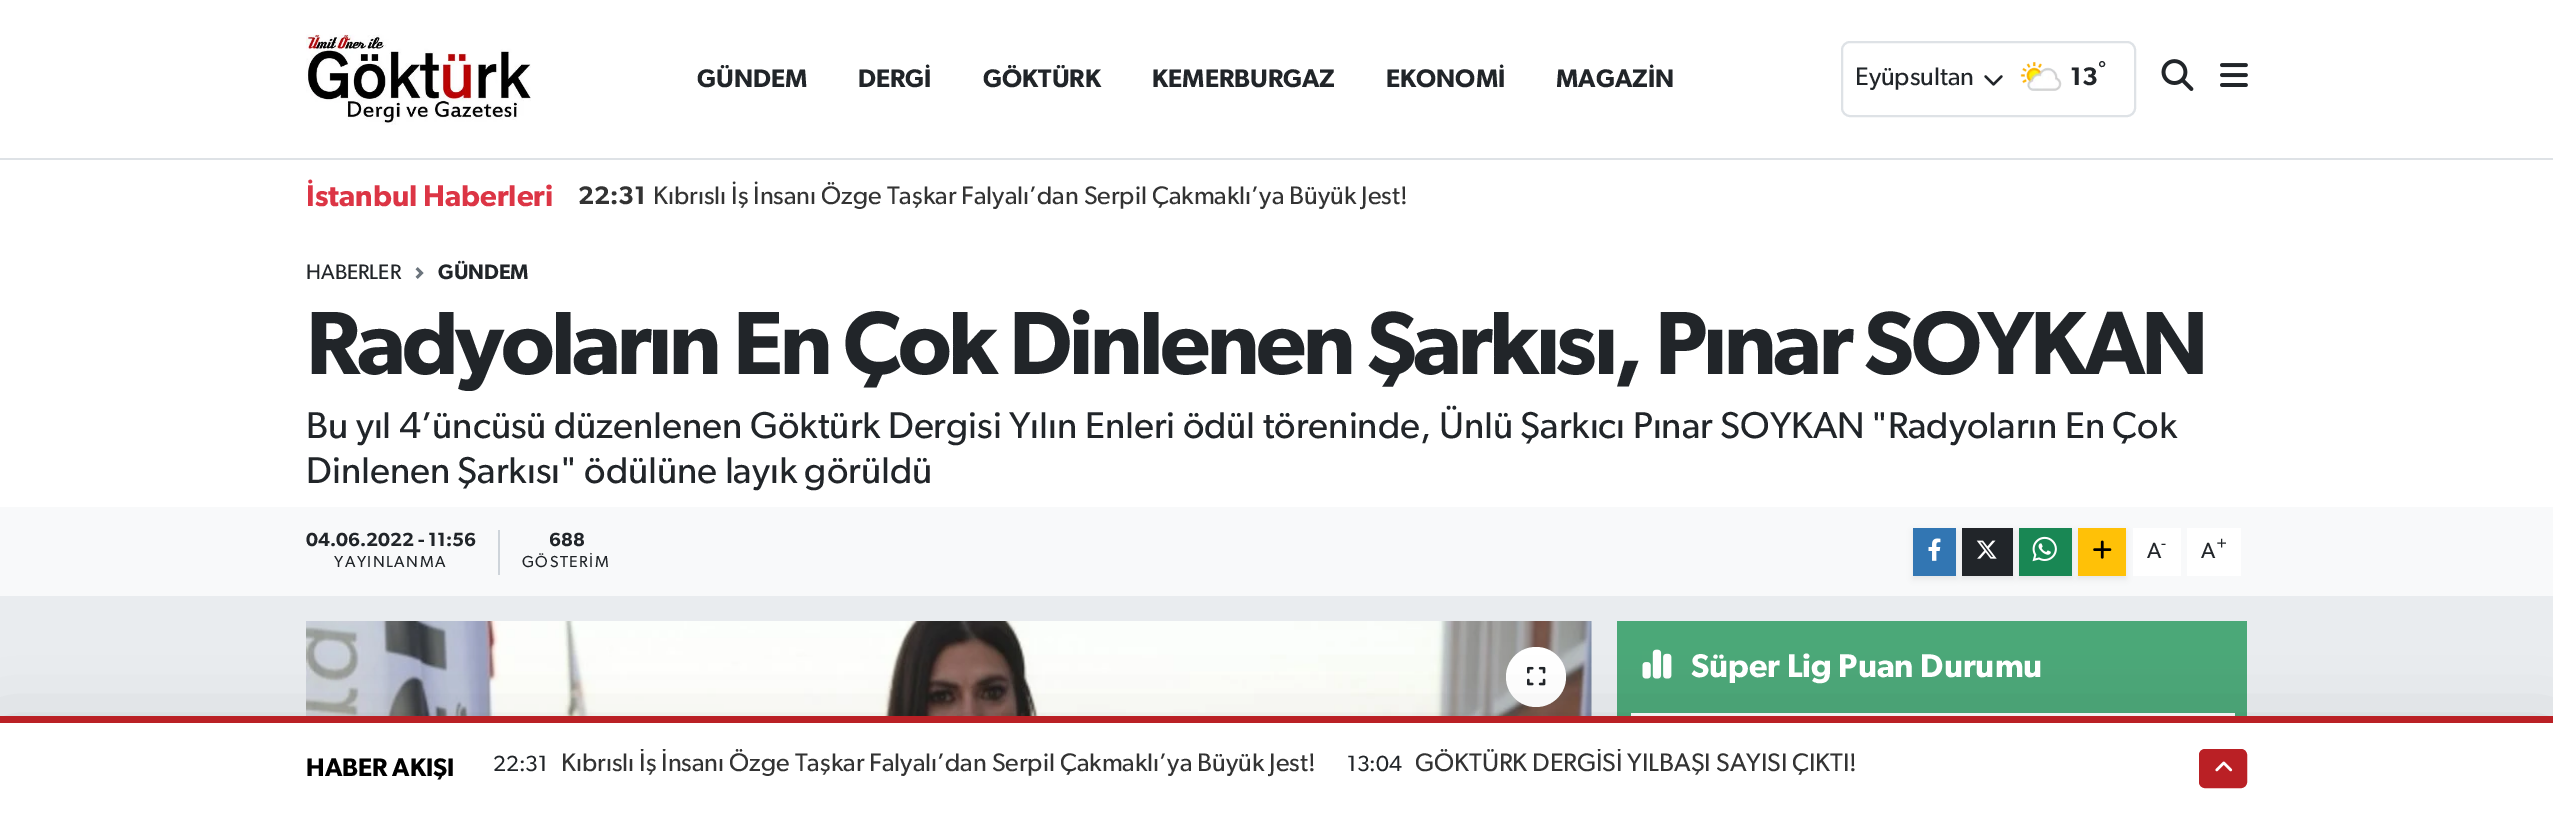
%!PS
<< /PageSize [2553 827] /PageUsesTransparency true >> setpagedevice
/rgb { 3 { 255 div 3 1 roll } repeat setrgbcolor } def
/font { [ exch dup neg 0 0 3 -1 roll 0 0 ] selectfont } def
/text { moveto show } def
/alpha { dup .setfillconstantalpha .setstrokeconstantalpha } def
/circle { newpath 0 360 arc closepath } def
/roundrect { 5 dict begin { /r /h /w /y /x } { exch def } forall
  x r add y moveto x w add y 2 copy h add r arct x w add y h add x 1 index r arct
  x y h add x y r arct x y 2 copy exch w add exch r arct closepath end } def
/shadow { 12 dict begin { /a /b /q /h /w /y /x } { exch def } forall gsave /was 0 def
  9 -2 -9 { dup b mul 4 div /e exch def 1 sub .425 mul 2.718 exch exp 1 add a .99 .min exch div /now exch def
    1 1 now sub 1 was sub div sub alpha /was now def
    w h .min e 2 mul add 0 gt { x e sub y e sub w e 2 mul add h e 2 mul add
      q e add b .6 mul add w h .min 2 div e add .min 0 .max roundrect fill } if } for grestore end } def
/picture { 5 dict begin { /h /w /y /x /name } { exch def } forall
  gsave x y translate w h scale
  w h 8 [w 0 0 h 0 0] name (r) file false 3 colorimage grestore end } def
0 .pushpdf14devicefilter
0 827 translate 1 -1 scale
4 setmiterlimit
233 236 239 rgb
0 0 2553 827 rectfill
255 255 255 rgb
0 0 2553 158 rectfill
222 226 230 rgb
0 158 2553 2 rectfill
(img_01.rgb) 306 34 225 91 picture
2 setlinewidth
1842 42 293 74 8 roundrect stroke
(img_02.rgb) 1984 75 19 11 picture
(img_03.rgb) 2020 62 42 29 picture
(img_04.rgb) 2161 59 33 32 picture
(img_05.rgb) 2220 63 28 24 picture
255 255 255 rgb
0 160 2553 347 rectfill
(img_06.rgb) 415 267 9 12 picture
248 249 250 rgb
0 507 2553 89 rectfill
206 212 218 rgb
498 530 2 45 rectfill
0 0 0 rgb
1913 531 43 48 0 3 0.07 shadow
50 118 179 rgb
1913 528 43 48 rectfill
(img_07.rgb) 1928 538 13 23 picture
0 0 0 rgb
1962 531 51 48 0 3 0.07 shadow
33 37 41 rgb
1962 528 51 48 rectfill
(img_08.rgb) 1976 540 21 19 picture
0 0 0 rgb
2019 531 53 48 0 3 0.07 shadow
25 135 84 rgb
2019 528 53 48 rectfill
(img_09.rgb) 2032 536 25 26 picture
255 255 255 rgb
2133 528 48 48 rectfill
0 0 0 rgb
2078 531 48 48 0 3 0.07 shadow
255 193 7 rgb
2078 528 48 48 rectfill
(img_10.rgb) 2093 540 19 19 picture
255 255 255 rgb
2187 528 54 48 rectfill
(img_11.rgb) 306 621 1286 95 picture
1536 677 30 circle fill
(img_12.rgb) 1527 666 19 20 picture
gsave 1617 621 moveto 630 0 rlineto 0 95 rlineto -630 0 rlineto closepath clip newpath
<< /ShadingType 2 /ColorSpace /DeviceRGB /Coords [1932 621 1932 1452] /Extend [true true] /Function << /FunctionType 2 /Domain [0 1] /C0 [0.294 0.663 0.471] /C1 [0.349 0.584 0.463] /N 1 >> >> shfill grestore
(img_13.rgb) 1642 649 30 30 picture
1631 713 604 3 rectfill
0 0 0 rgb
0 741 2553 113 0 38 0.18 shadow
255 255 255 rgb
0 723 2553 104 rectfill
186 32 37 rgb
0 716 2553 7 rectfill
2200 750 46 37 5 roundrect gsave fill grestore
stroke
(img_14.rgb) 2215 761 18 11 picture
/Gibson-SemiBold 25.5 font
33 37 41 rgb
(GÜNDEM) 697 87 text
(DERGİ) 858 87 text
(GÖKTÜRK) 983 87 text
(KEMERBURGAZ) 1152 87 text
(EKONOMİ) 1386 87 text
(MAGAZİN) 1556 87 text
/Gibson-Regular 25.5 font
(Eyüpsultan) 1855 85 text
/Gibson-SemiBold 25.5 font
(13) 2070 85 text
/Gibson-SemiBold 19.1 font
(°) 2098 75 text
/Gibson-SemiBold 30 font
220 53 69 rgb
(İstanbul Haberleri) 306 206 text
/Gibson-SemiBold 25.5 font
51 51 51 rgb
(22:31) 578 204 text
/Gibson-Regular 25.5 font
(Kıbrıslı İş İnsanı Özge Taşkar Falyalı’dan Serpil Çakmaklı’ya Büyük Jest!) 653 204 text
/Gibson-Regular 21 font
33 37 41 rgb
(HABERLER) 306 279 text
/Gibson-SemiBold 21 font
(GÜNDEM) 438 279 text
/Gibson-SemiBold 90 font
306 374 moveto -3.45 0 (Radyoların En Çok Dinlenen Şarkısı, Pınar SOYKAN) ashow
/Gibson-Regular 37.5 font
(Bu yıl 4’üncüsü düzenlenen Göktürk Dergisi Yılın Enleri ödül töreninde, Ünlü Şarkıcı Pınar SOYKAN) 306 438 text
("Radyoların En Çok) 1871 438 text
(Dinlenen Şarkısı" ödülüne layık görüldü) 306 483 text
/Gibson-SemiBold 19.1 font
(04.06.2022 - 11:56) 306 546 text
/Gibson-Regular 16 font
334 567 moveto 1.5 0 (YAYINLANMA) ashow
/Gibson-SemiBold 19.1 font
(688) 549 546 text
/Gibson-Regular 16 font
522 567 moveto 1.5 0 (GÖSTERİM) ashow
/Gibson-Regular 22 font
(A) 2147 558 text
/Gibson-Regular 17 font
(-) 2161 549 text
/Gibson-Regular 22 font
(A) 2201 558 text
/Gibson-Regular 17 font
(+) 2216 549 text
/Gibson-SemiBold 33 font
255 255 255 rgb
(Süper Lig Puan Durumu) 1691 677 text
/Gibson-SemiBold 25.5 font
0 0 0 rgb
(HABER AKIŞI) 306 776 text
/Gibson-Regular 22 font
33 37 41 rgb
(22:31) 493 771 text
gsave
561 749 755 33 rectclip
/Gibson-Regular 25.5 font
51 51 51 rgb
(Kıbrıslı İş İnsanı Özge Taşkar Falyalı’dan Serpil Çakmaklı’ya Büyük Jest!) 561 771 text
grestore
(13:04) 1347 771 text
gsave
1415 749 442 33 rectclip
/Gibson-Regular 25.5 font
51 51 51 rgb
(GÖKTÜRK DERGİSİ YILBAŞI SAYISI ÇIKTI!) 1415 771 text
grestore
.poppdf14devicefilter showpage
